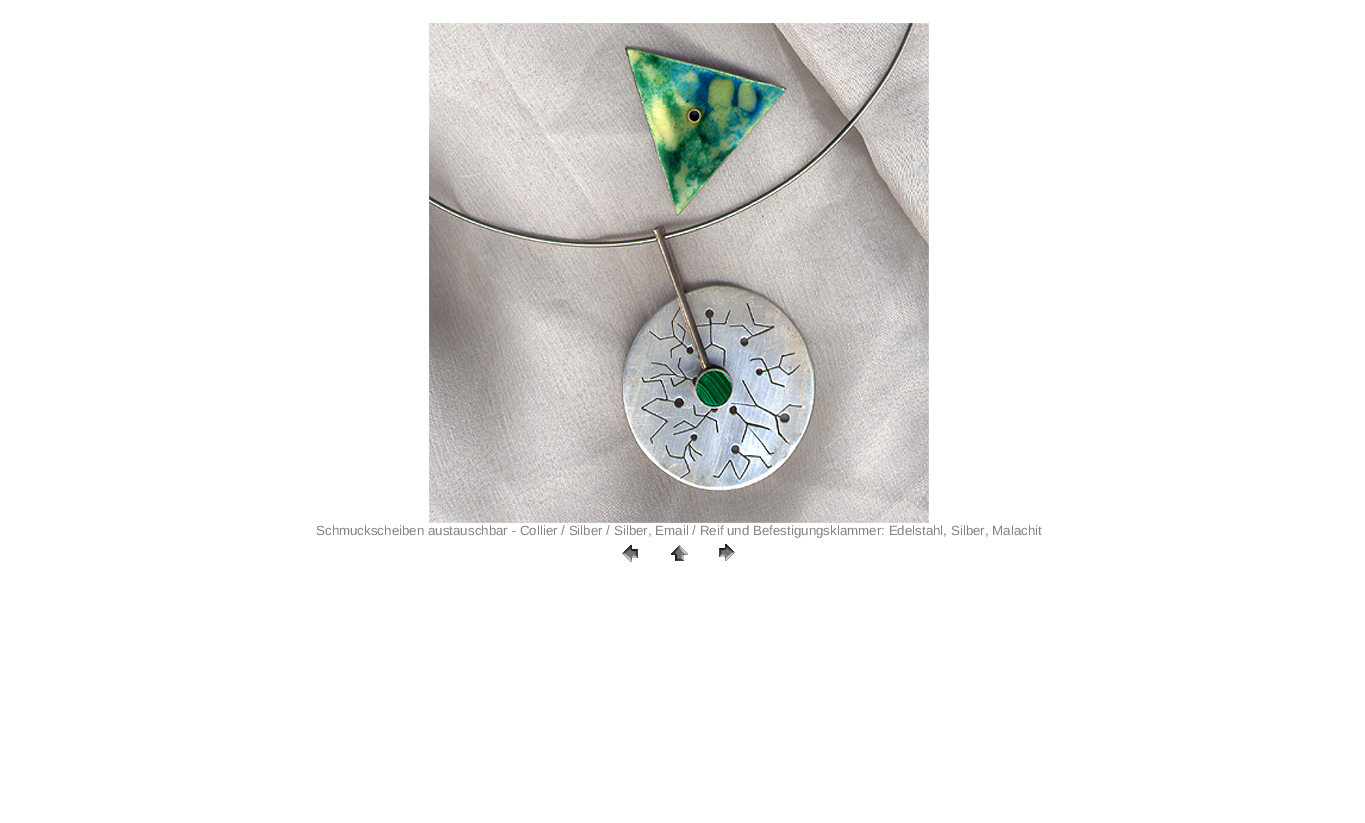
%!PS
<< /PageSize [1365 823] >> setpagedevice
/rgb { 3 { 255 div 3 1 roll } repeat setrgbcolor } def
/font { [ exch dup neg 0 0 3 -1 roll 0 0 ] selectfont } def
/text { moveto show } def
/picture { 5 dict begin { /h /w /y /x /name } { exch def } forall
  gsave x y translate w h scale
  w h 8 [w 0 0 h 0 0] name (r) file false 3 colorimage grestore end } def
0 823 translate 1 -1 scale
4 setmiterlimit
255 255 255 rgb
0 0 1365 823 rectfill
(img_01.rgb) 429 23 500 500 picture
(img_02.rgb) 622 545 16 17 picture
(img_03.rgb) 671 545 17 16 picture
(img_04.rgb) 719 544 16 17 picture
/LiberationSans-Regular 13.33 font
131 131 131 rgb
(Schmuckscheiben austauschbar - Collier / Silber / Silber, Email / Reif und Befestigungsklammer: Edelstahl, Silber, Malachit) 316 535 text
showpage
